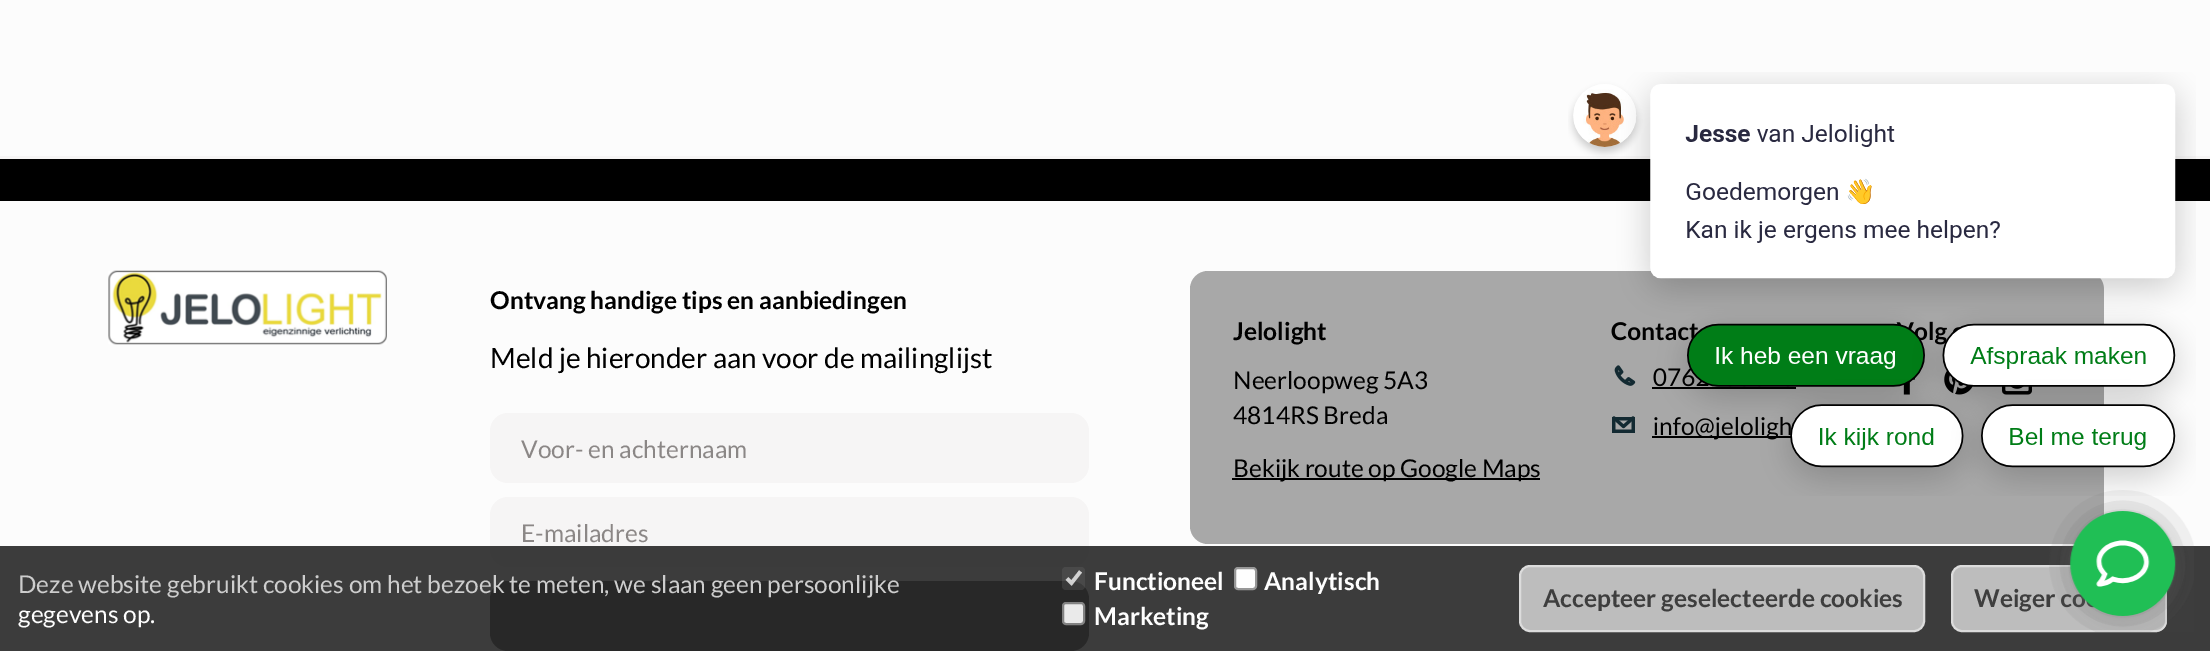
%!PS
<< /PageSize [2210 651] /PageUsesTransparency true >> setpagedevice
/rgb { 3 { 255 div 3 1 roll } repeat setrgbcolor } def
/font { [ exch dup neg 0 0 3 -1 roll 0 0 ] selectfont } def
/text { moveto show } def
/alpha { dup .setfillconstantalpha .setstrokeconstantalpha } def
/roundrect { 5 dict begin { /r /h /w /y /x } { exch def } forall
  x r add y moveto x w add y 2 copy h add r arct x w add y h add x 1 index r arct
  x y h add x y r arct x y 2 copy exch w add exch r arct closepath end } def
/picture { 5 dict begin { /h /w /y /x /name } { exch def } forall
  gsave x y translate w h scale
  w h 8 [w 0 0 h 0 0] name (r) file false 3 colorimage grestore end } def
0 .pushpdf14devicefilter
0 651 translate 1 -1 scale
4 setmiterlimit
252 252 252 rgb
0 0 2210 651 rectfill
246 245 245 rgb
0 156 2210 3 rectfill
0 0 0 rgb
0 159 2210 42 rectfill
(img_03.rgb) 108 270 279 75 picture
246 245 245 rgb
490 413 599 70 18 roundrect fill
490 497 599 70 18 roundrect fill
168 168 168 rgb
490 581 599 70 18 roundrect fill
1190 271 914 273 18 roundrect fill
0 0 0 rgb
1232 478 308 2 rectfill
(img_04.rgb) 1614 365 22 21 picture
1652 387 144 2 rectfill
19 42 50 rgb
3.5 setlinewidth
1613.75 418.75 19.5 12.5 rectstroke
1 setlinecap
1 setlinejoin
1614 418 moveto 9.5 8.5 rlineto 9.5 -8.5 rlineto stroke
0 0 0 rgb
1652 436 139 2 rectfill
(img_05.rgb) 1903 377 13 18 picture
(img_06.rgb) 1944 369 29 26 picture
(img_07.rgb) 2002 386 30 9 picture
0.76 alpha
0 546 2210 105 rectfill
0.23 alpha
118 118 118 rgb
1062 567 23 23 4 roundrect fill
0.76 alpha
255 255 255 rgb
3.6 setlinewidth
0 setlinecap
0 setlinejoin
1067 578.5 moveto 4.5 4.5 rlineto 9 -11.5 rlineto stroke
1 alpha
254 254 254 rgb
1235 568 21 21 3 roundrect gsave fill grestore
151 151 151 rgb
2 setlinewidth
stroke
234 234 234 rgb
1063 603 21 21 3 roundrect gsave fill grestore
130 130 130 rgb
stroke
189 189 189 rgb
1520 566 404 65 10 roundrect gsave fill grestore
220 220 220 rgb
stroke
189 189 189 rgb
1952 566 214 65 10 roundrect gsave fill grestore
220 220 220 rgb
stroke
/Lato-Bold 24.5 font
0 0 0 rgb
(Ontvang handige tips en aanbiedingen) 490 309 text
/Lato-Regular 28 font
(Meld je hieronder aan voor de mailinglijst) 490 368 text
/Lato-Regular 24.5 font
139 135 134 rgb
(Voor- en achternaam) 521 458 text
(E-mailadres) 521 542 text
/Lato-Bold 24.5 font
0 0 0 rgb
(Jelolight) 1233 340 text
/Lato-Regular 24.5 font
(Neerloopweg 5A3) 1233 389 text
(4814RS Breda) 1233 424 text
(Bekijk route op Google Maps) 1233 477 text
/Lato-Bold 24.5 font
(Contact) 1611 340 text
/Lato-Regular 24.5 font
(076) 1653 386 text
(info@jeloligh) 1653 435 text
/Lato-Bold 24.5 font
(lg) 1928 340 text
/Lato-Regular 24.5 font
205 205 205 rgb
(Deze website gebruikt cookies om het bezoek te meten, we slaan geen persoonlijke) 18 593 text
254 254 254 rgb
(gegevens op.) 18 623 text
/Lato-Bold 24.5 font
(Functioneel) 1094 590 text
(Analytisch) 1264 590 text
(Marketing) 1094 625 text
62 62 62 rgb
(Accepteer geselecteerde cookies) 1543 607 text
(Weiger co) 1974 607 text
(img_02.rgb) 2049 490 145 142 picture
(img_01.rgb) 1568 72 628 424 picture
.poppdf14devicefilter showpage
